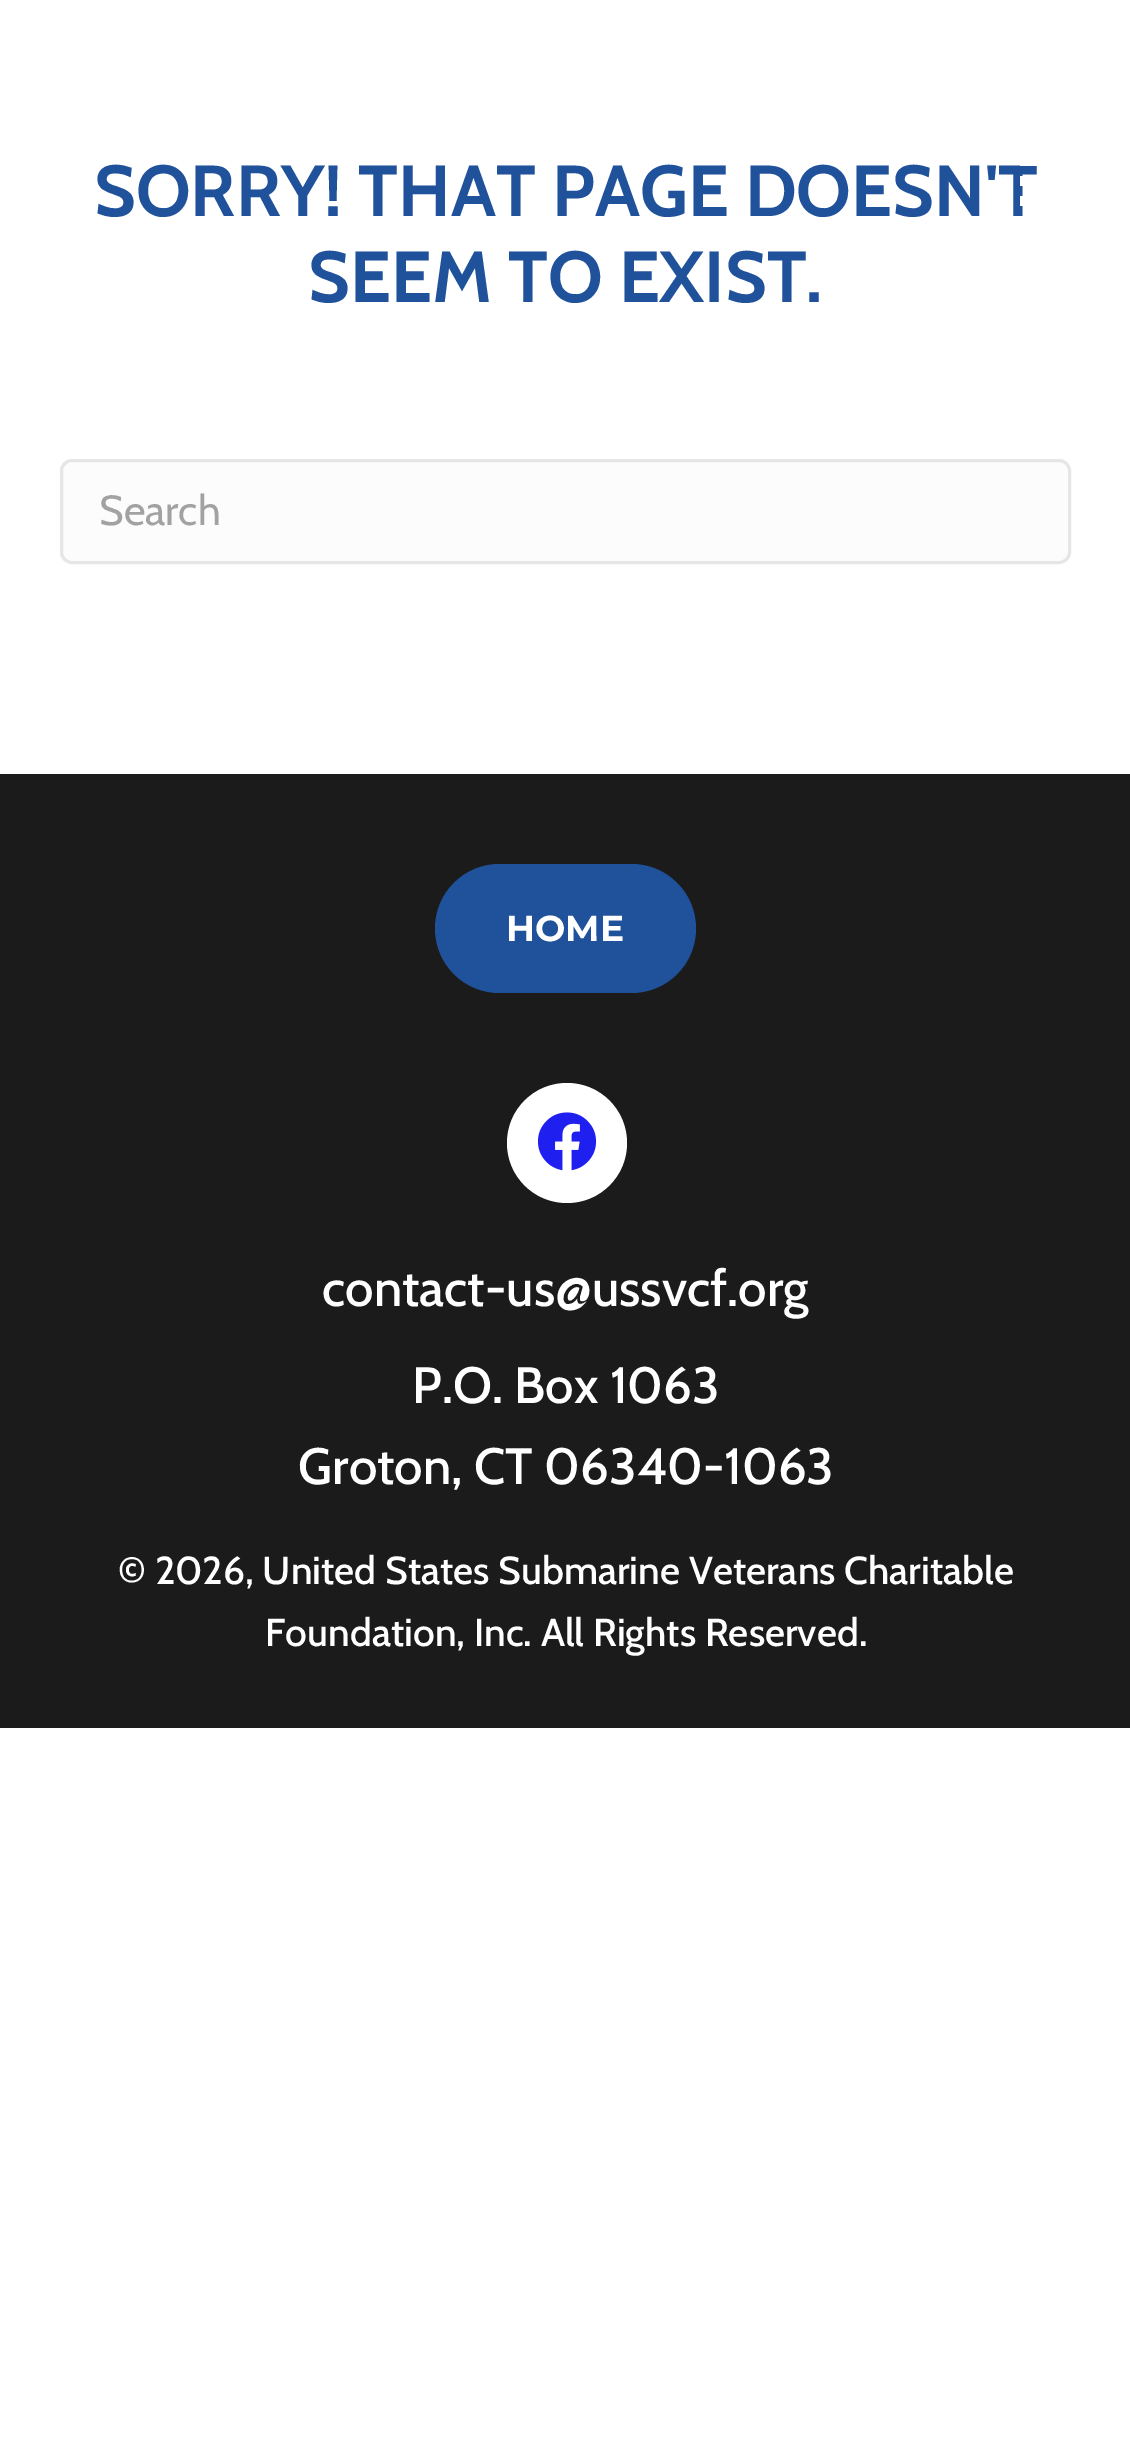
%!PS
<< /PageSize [1130 2462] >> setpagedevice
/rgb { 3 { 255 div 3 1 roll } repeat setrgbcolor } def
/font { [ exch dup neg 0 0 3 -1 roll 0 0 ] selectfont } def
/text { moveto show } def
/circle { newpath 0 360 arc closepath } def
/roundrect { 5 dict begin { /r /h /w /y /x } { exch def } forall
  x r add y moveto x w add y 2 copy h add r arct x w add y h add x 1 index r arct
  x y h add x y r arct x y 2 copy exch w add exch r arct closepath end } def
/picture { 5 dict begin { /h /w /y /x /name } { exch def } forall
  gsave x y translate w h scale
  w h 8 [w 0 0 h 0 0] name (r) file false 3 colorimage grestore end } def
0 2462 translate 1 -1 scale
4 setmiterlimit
255 255 255 rgb
0 0 1130 2462 rectfill
252 252 252 rgb
61.5 460.5 1008 102 10.5 roundrect gsave fill grestore
230 230 230 rgb
3 setlinewidth
stroke
27 27 27 rgb
0 774 1130 954 rectfill
32 81 155 rgb
435 864 261 129 64.5 roundrect fill
255 255 255 rgb
567 1143 60 circle fill
(img_01.rgb) 537 1112 60 59 picture
/Cabin-Bold 72 font
32 81 155 rgb
(SORRY! THAT PAGE DOESN'T) 94 216 text
(SEEM TO EXIST.) 308 302 text
/Cabin-Regular 42 font
162 162 162 rgb
(Search) 99 525 text
255 255 255 rgb
1020 165 17 1 rectfill
1020 176 3 10 rectfill
1020 196 3 10 rectfill
/Montserrat-Thin 36 font
(HOME) 506 941 text
/Cabin-Medium 51 font
(contact-us@ussvcf.org) 322 1306 text
(P.O. Box 1063) 412 1403 text
(Groton, CT 06340-1063) 298 1484 text
/Cabin-Medium 39 font
(© 2026, United States Submarine Veterans Charitable) 118 1584 text
(Foundation, Inc. All Rights Reserved.) 265 1646 text
showpage
